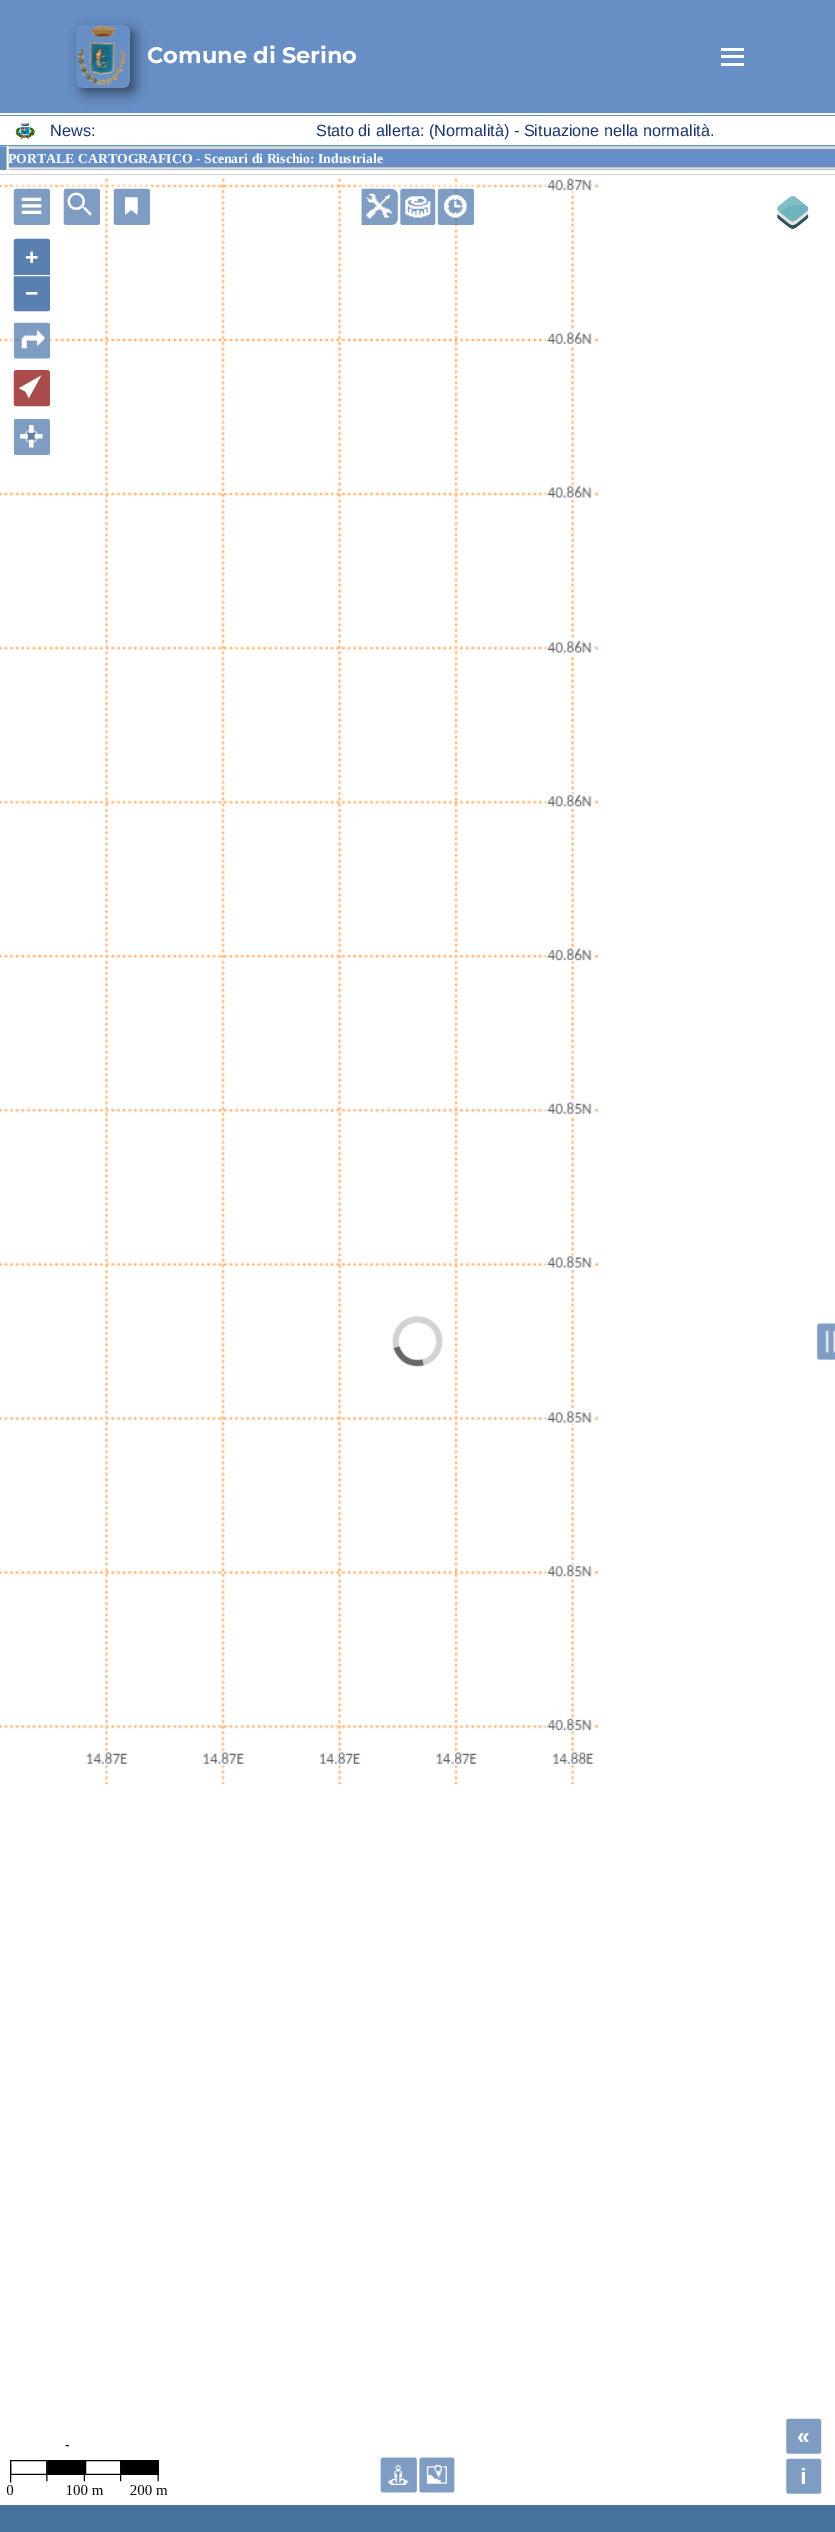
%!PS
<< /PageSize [835 2532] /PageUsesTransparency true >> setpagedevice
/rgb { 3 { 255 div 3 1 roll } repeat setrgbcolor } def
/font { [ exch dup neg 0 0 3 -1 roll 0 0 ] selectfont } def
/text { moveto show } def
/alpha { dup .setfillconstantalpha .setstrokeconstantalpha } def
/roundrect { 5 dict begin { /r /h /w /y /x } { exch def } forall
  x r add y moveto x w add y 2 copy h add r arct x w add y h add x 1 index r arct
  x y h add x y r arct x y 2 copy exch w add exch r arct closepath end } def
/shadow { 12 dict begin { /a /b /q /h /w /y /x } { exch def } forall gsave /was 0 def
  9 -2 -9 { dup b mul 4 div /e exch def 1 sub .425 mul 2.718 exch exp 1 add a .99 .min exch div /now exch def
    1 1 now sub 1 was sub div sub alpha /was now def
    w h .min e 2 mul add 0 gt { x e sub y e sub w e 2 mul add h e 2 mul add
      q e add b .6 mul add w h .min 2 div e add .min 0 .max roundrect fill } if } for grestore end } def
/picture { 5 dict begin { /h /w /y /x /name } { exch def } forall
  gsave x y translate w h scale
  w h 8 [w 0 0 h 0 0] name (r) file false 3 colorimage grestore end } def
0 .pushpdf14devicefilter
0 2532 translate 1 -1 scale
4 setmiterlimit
255 255 255 rgb
0 0 835 2532 rectfill
103 142 197 rgb
0 0 835 113 rectfill
gsave
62 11 moveto 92 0 rlineto 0 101 rlineto -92 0 rlineto closepath 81 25 moveto 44 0 rlineto 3 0 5 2 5 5 rcurveto 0 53 rlineto 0 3 -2 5 -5 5 rcurveto -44 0 rlineto -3 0 -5 -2 -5 -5 rcurveto 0 -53 rlineto 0 -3 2 -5 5 -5 rcurveto closepath eoclip newpath
0 0 0 rgb
81 30 54 63 5 6 0.5 shadow
grestore
(img_01.rgb) 77 26 50 60 picture
255 255 255 rgb
721 63 23 3 rectfill
721 55 23 3 rectfill
721 48 23 3 rectfill
101 143 200 rgb
0 115 835 1 rectfill
(img_02.rgb) 15 122 20 18 picture
0 145 835 1 rectfill
(img_03.rgb) 0 146 9 24 picture
(img_04.rgb) 8 146 827 24 picture
211 211 211 rgb
0 174 835 1 rectfill
(img_05.rgb) 0 178 835 2354 picture
/Montserrat-Bold 22.5 font
255 255 255 rgb
(Comune di Serino) 147 63 text
/LiberationSans-Regular 16.25 font
27 54 111 rgb
(News:) 50 136 text
(Stato di allerta: \(Normalità\) - Situazione nella normalità.) 316 136 text
/LiberationSerif-Bold 13.75 font
255 255 255 rgb
(PORTALE CARTOGRAFICO - Scenari di Rischio: Industriale) 8 163 text
.poppdf14devicefilter showpage
